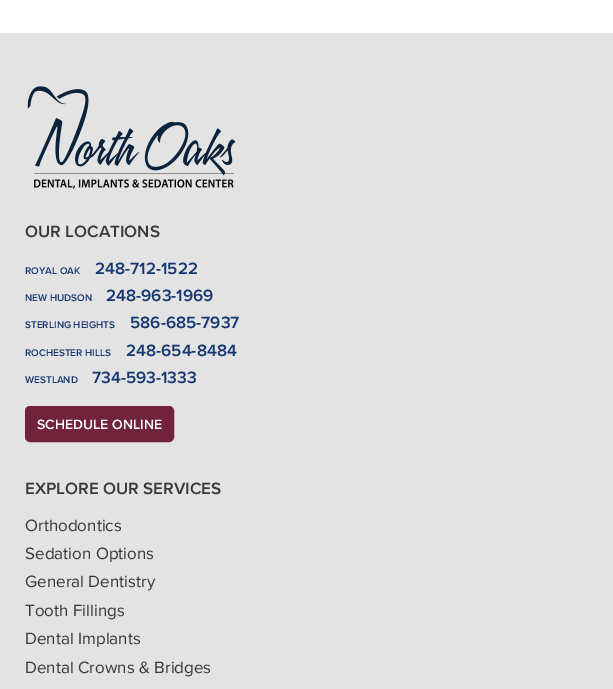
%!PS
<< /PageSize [613 689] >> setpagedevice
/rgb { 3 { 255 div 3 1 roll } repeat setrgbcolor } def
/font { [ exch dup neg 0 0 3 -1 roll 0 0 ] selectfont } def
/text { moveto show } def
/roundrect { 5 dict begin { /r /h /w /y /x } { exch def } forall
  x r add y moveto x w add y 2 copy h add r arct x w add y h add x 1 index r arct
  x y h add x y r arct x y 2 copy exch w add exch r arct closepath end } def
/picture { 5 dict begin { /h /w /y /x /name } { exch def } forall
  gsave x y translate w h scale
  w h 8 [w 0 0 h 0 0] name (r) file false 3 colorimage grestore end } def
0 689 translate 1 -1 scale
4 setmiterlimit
255 255 255 rgb
0 0 613 689 rectfill
227 227 227 rgb
0 33 613 656 rectfill
(img_01.rgb) 27 86 209 103 picture
113 35 60 rgb
26 407 147 34 4 roundrect gsave fill grestore
2 setlinewidth
stroke
/ProximaNova-SemiBold 17 font
56 56 57 rgb
(OUR LOCATIONS) 25 237 text
/ProximaNova-SemiBold 10 font
23 55 114 rgb
(ROYAL OAK) 25 274 text
/ProximaNova-SemiBold 17 font
(248-712-1522) 95 274 text
/ProximaNova-SemiBold 10 font
(NEW HUDSON) 25 301 text
/ProximaNova-SemiBold 17 font
(248-963-1969) 106 301 text
/ProximaNova-SemiBold 10 font
(STERLING HEIGHTS) 25 328 text
/ProximaNova-SemiBold 17 font
(586-685-7937) 130 328 text
/ProximaNova-SemiBold 10 font
(ROCHESTER HILLS) 25 356 text
/ProximaNova-SemiBold 17 font
(248-654-8484) 126 356 text
/ProximaNova-SemiBold 10 font
(WESTLAND) 25 383 text
/ProximaNova-SemiBold 17 font
(734-593-1333) 92 383 text
/ProximaNova-SemiBold 14 font
255 255 255 rgb
(SCHEDULE ONLINE) 37 429 text
/ProximaNova-SemiBold 17 font
56 56 57 rgb
(EXPLORE OUR SERVICES) 25 494 text
/ProximaNova-Regular 17 font
(Orthodontics) 25 531 text
(Sedation Options) 25 559 text
(General Dentistry) 25 587 text
(Tooth Fillings) 25 616 text
(Dental Implants) 25 644 text
(Dental Crowns & Bridges) 25 673 text
showpage
